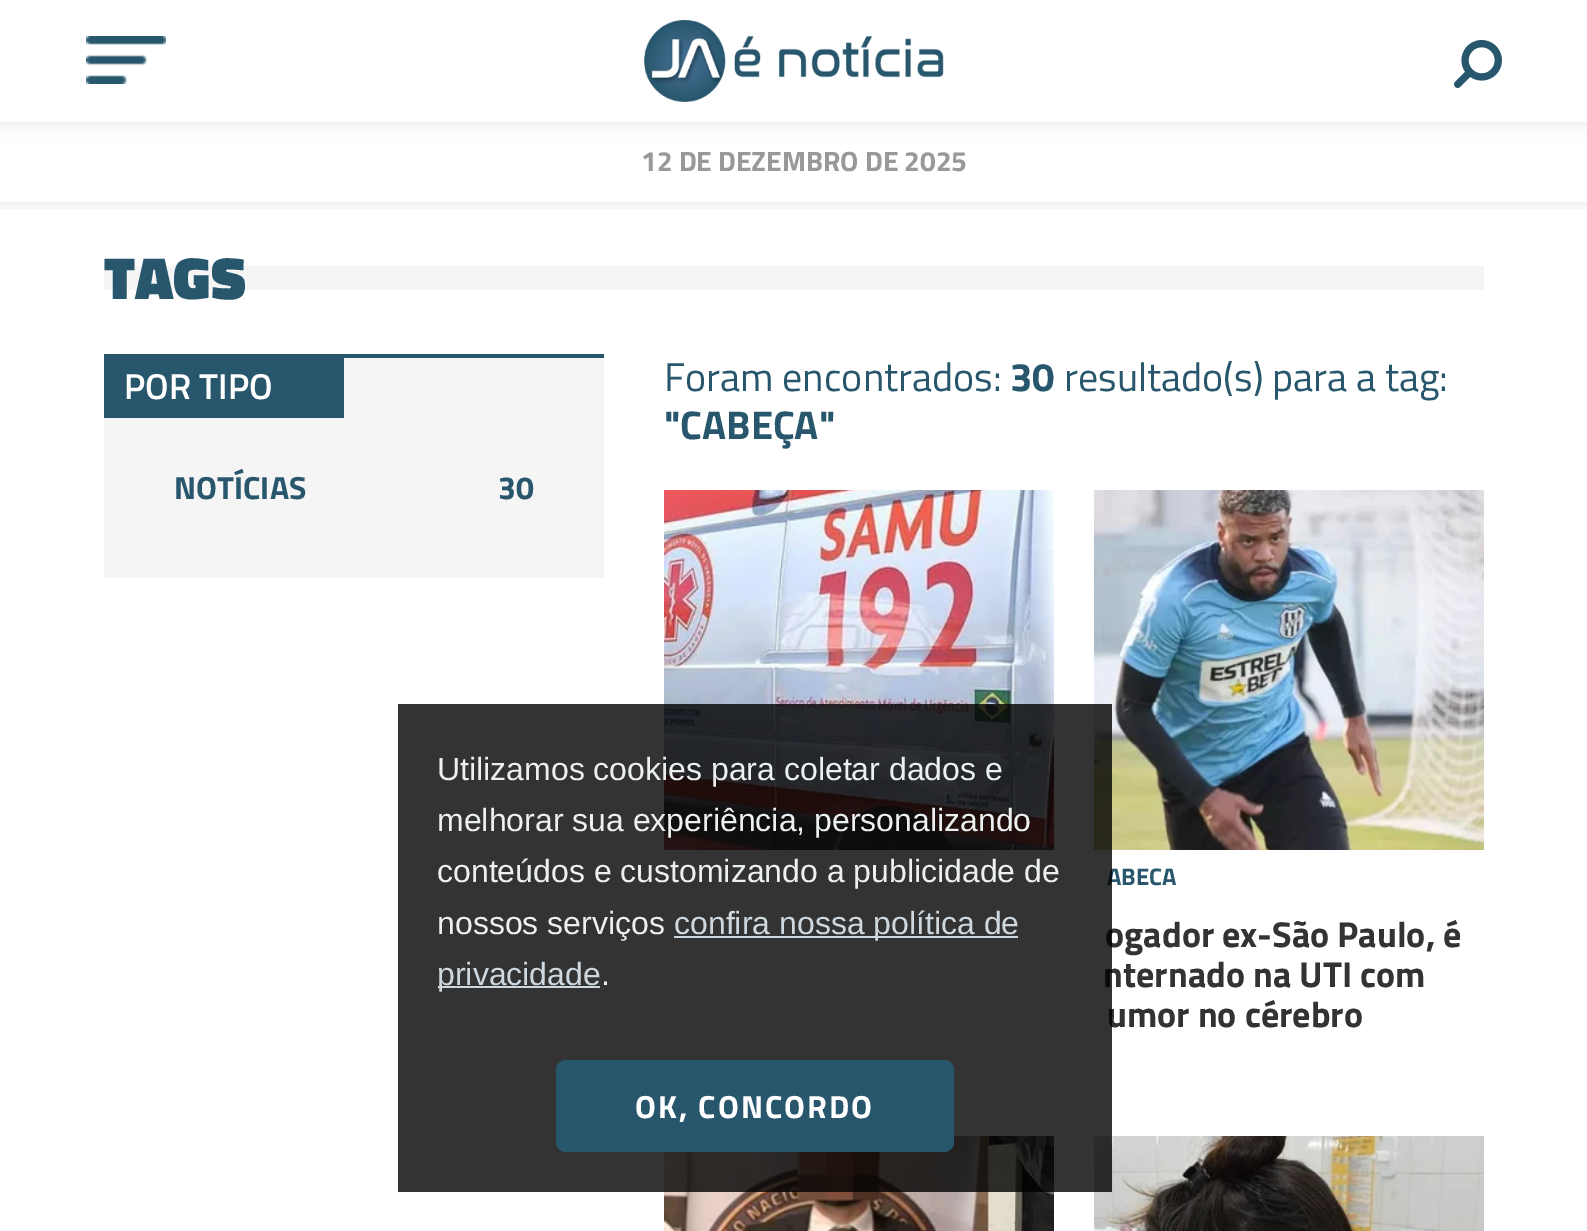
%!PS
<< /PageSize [1587 1231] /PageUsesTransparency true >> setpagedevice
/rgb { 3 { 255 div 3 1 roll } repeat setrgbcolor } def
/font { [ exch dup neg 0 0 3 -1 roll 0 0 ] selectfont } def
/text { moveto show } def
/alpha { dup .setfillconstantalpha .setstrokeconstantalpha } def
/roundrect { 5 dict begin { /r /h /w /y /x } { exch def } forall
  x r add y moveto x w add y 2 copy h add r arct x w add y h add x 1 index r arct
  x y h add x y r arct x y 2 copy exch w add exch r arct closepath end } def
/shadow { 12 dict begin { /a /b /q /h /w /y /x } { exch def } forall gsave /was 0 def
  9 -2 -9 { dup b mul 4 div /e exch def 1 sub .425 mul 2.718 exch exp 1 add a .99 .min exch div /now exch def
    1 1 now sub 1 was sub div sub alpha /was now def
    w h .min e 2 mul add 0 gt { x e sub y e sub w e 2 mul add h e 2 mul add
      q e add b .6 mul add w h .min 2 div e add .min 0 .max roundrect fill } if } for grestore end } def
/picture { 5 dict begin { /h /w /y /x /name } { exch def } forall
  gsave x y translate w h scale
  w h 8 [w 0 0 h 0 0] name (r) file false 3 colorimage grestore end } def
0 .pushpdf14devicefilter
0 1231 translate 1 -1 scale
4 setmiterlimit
255 255 255 rgb
0 0 1587 1231 rectfill
0 0 0 rgb
0 0 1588 122 0 10 0.1 shadow
gsave
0 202 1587 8 rectclip
0 122 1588 80 0 10 0.1 shadow
grestore
255 255 255 rgb
0 0 1587 122 rectfill
(img_01.rgb) 86 36 80 48 picture
(img_02.rgb) 644 20 300 82 picture
(img_03.rgb) 1454 40 48 48 picture
245 245 245 rgb
104 266 1380 24 rectfill
104 358 500 220 rectfill
39 86 109 rgb
104 354 500 4 rectfill
104 358 240 60 rectfill
(img_04.rgb) 664 490 390 360 picture
(img_05.rgb) 1094 490 390 360 picture
(img_06.rgb) 664 1136 390 95 picture
(img_07.rgb) 1094 1136 390 95 picture
/TitilliumWeb-Bold 28 font
153 153 153 rgb
(12 DE DEZEMBRO DE 2025) 641 171 text
/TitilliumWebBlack-Black 60 font
39 86 109 rgb
(TAGS) 104 299 text
/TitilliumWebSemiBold-SemiBold 36 font
255 255 255 rgb
(POR TIPO) 124 399 text
/TitilliumWeb-Bold 32 font
39 86 109 rgb
(NOTÍCIAS) 174 499 text
(30) 498 499 text
/TitilliumWeb-Regular 40 font
(Foram encontrados:) 664 391 text
/TitilliumWeb-Bold 40 font
(30) 1010 391 text
/TitilliumWeb-Regular 40 font
(resultado\(s\) para a tag:) 1064 391 text
/TitilliumWeb-Bold 40 font
("CABEÇA") 664 439 text
/TitilliumWeb-Bold 24 font
(ABECA) 1107 885 text
/TitilliumWeb-Bold 36 font
51 51 51 rgb
(ogador ex-São Paulo, é) 1105 947 text
(nternado na UTI com) 1103 987 text
(umor no cérebro) 1107 1027 text
0.8 alpha
0 0 0 rgb
398 704 714 488 rectfill
/LiberationSans-Regular 32 font
1 alpha
236 240 241 rgb
(Utilizamos cookies para coletar dados e) 437 780 text
(melhorar sua experiência, personalizando) 437 831 text
(conteúdos e customizando a publicidade de) 437 882 text
(nossos serviços) 437 934 text
206 216 222 rgb
674 936 344 2 rectfill
(confira nossa política de) 674 934 text
438 986 162 2 rectfill
(privacidade) 437 985 text
236 240 241 rgb
(.) 601 985 text
39 86 109 rgb
556 1060 398 92 10 roundrect fill
/TitilliumWeb-Bold 32 font
255 255 255 rgb
635 1118 moveto 2 0 (OK, CONCORDO) ashow
.poppdf14devicefilter showpage
